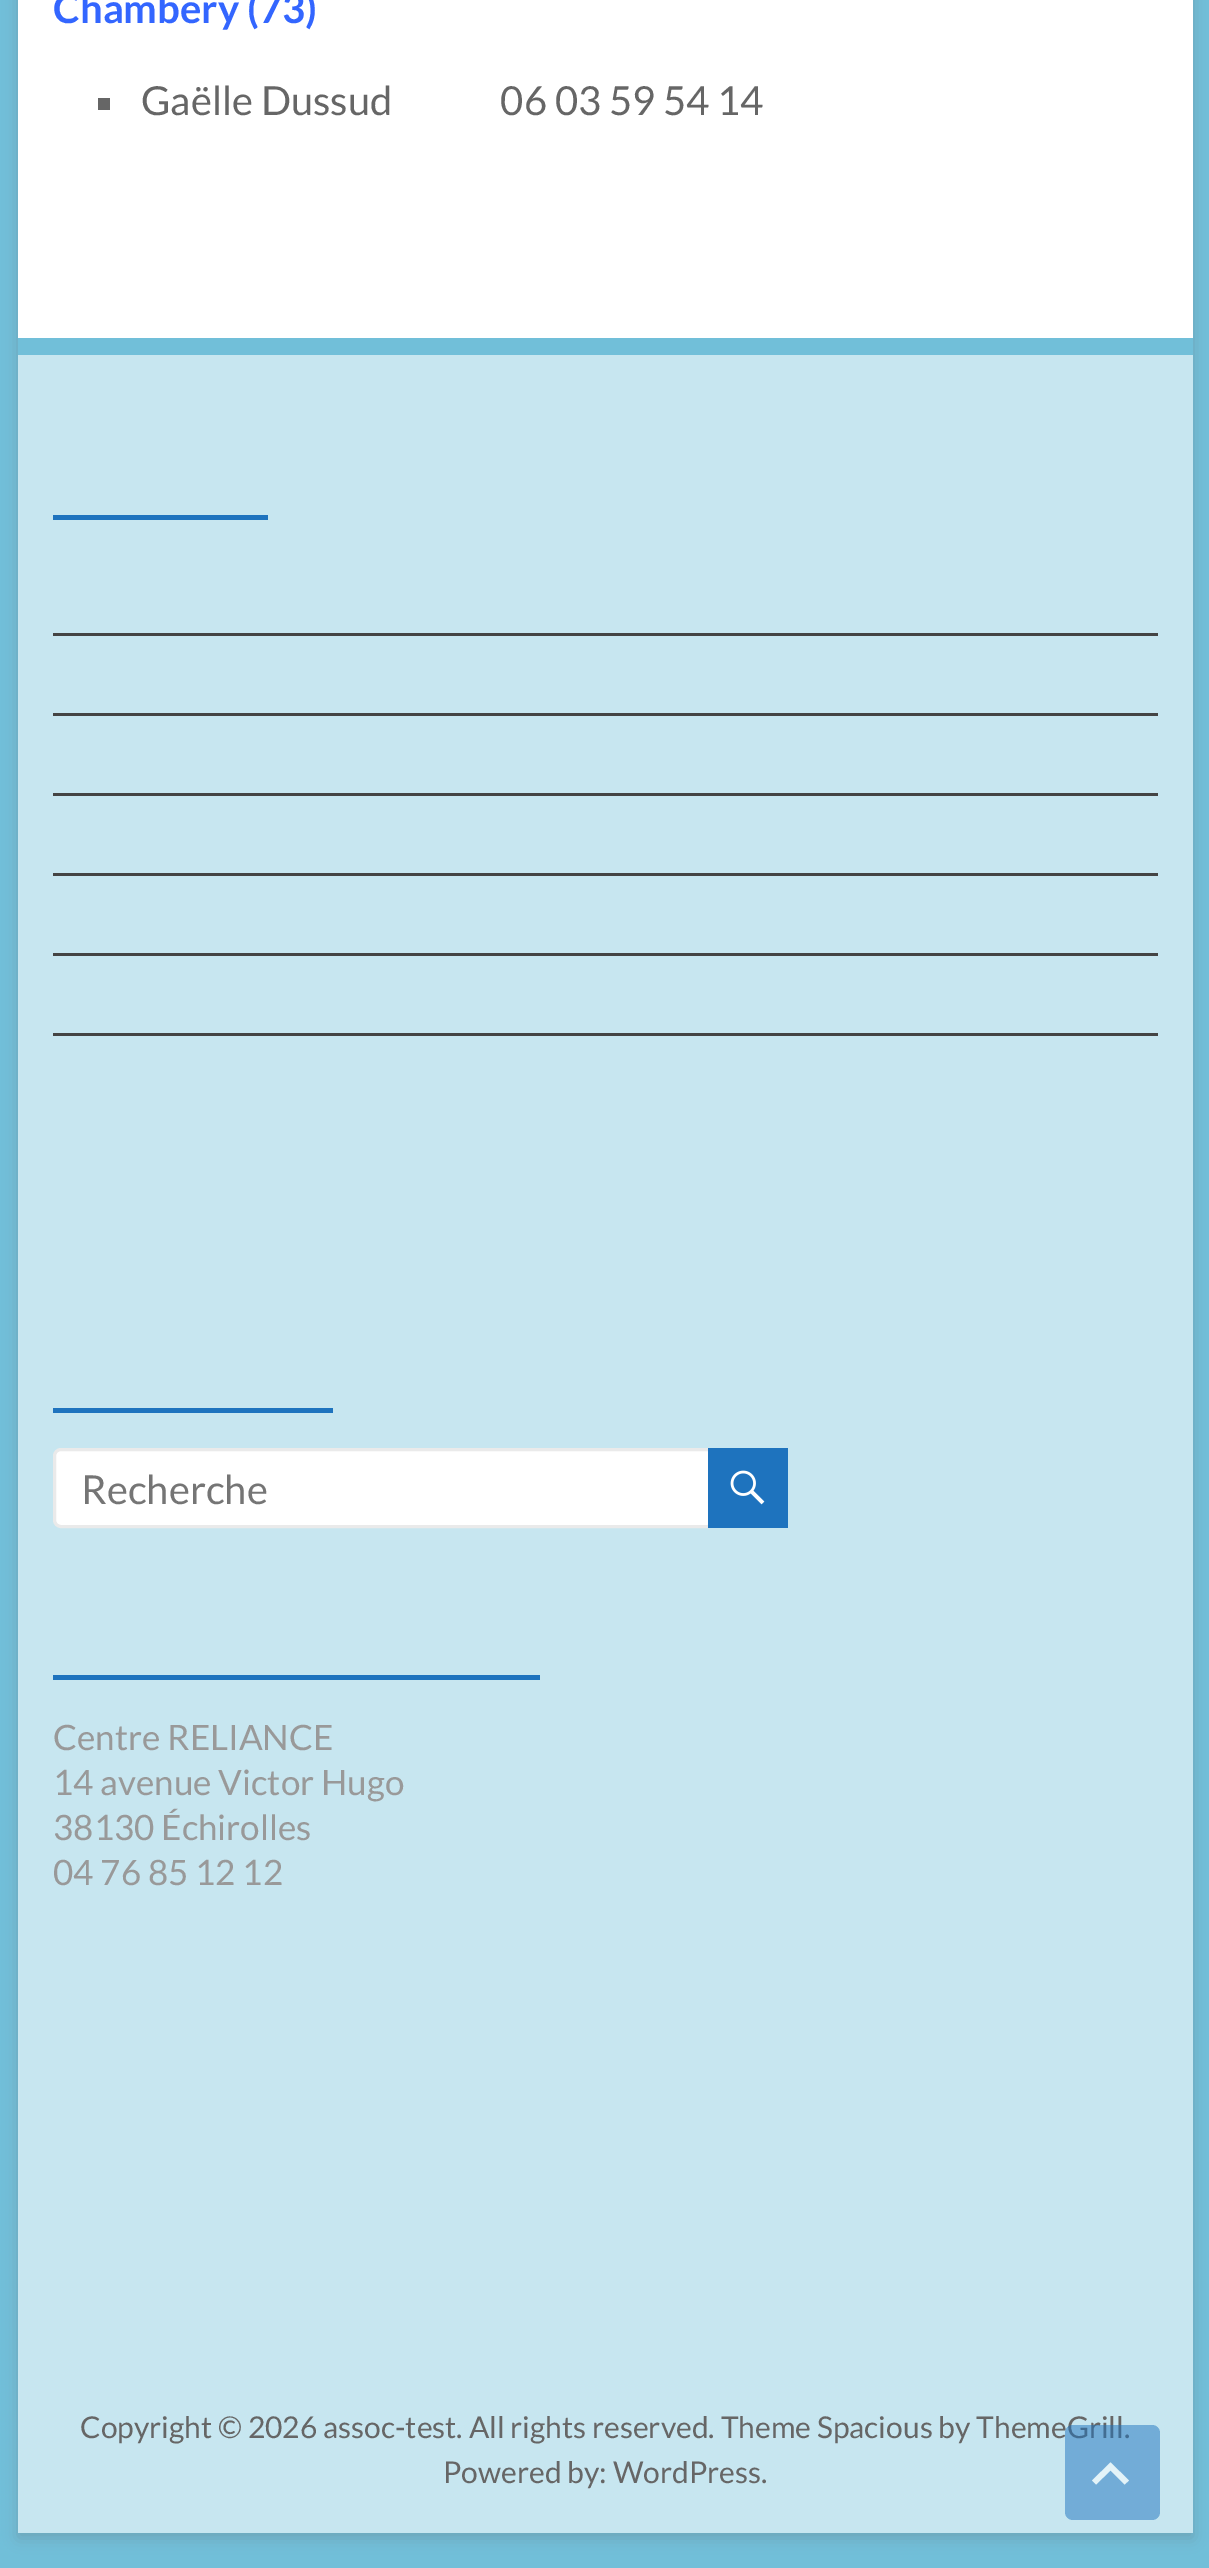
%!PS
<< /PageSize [1209 2568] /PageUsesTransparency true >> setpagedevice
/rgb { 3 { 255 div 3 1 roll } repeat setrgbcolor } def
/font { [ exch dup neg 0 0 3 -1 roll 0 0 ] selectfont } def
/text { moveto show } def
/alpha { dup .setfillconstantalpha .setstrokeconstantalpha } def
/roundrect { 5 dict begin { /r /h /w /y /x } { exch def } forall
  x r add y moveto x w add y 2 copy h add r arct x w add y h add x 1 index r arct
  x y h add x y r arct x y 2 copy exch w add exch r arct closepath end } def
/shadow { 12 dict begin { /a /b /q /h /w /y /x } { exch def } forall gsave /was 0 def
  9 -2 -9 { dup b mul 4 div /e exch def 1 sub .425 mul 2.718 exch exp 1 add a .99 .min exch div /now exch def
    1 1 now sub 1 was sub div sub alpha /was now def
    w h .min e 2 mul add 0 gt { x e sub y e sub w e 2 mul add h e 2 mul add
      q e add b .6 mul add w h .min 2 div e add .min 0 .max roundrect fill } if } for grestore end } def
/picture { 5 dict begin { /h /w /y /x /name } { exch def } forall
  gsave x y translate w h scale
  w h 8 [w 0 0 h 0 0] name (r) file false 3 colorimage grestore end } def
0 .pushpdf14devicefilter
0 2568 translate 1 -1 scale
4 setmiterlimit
113 191 217 rgb
0 0 1209 2568 rectfill
100 100 100 rgb
18 -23 1175 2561 0 7.5 0.3 shadow
255 255 255 rgb
18 0 1175 338 rectfill
102 102 102 rgb
98 98 12 12 rectfill
199 230 240 rgb
18 355 1175 2178 rectfill
113 191 217 rgb
18 338 1175 17 rectfill
30 115 190 rgb
53 515 215 5 rectfill
68 68 68 rgb
53 633 1105 3 rectfill
53 713 1105 3 rectfill
53 793 1105 3 rectfill
53 873 1105 3 rectfill
53 953 1105 3 rectfill
53 1033 1105 3 rectfill
30 115 190 rgb
53 1408 280 5 rectfill
255 255 255 rgb
54.5 1449.5 659 77 6.5 roundrect gsave fill grestore
234 234 234 rgb
3 setlinewidth
stroke
30 115 190 rgb
708 1448 80 80 rectfill
(img_01.rgb) 730 1470 35 35 picture
53 1675 487 5 rectfill
/Lato-Bold 40 font
51 102 255 rgb
(Chambéry \(73\)) 53 23 text
/Lato-Regular 40 font
102 102 102 rgb
(Gaëlle Dussud              06 03 59 54 14) 141 115 text
117 117 117 rgb
(Recherche) 81 1504 text
/Lato-Regular 35 font
153 153 153 rgb
(Centre RELIANCE) 53 1750 text
(14 avenue Victor Hugo) 53 1795 text
(38130 Échirolles) 53 1840 text
(04 76 85 12 12) 53 1885 text
/Lato-Regular 30 font
102 102 102 rgb
(Copyright © 2026 assoc-test. All rights reserved. Theme Spacious by ThemeGrill.) 80 2438 text
(Powered by: WordPress.) 443 2483 text
0.5 alpha
30 115 190 rgb
1065 2425 95 95 8 roundrect fill
1 alpha
227 243 248 rgb
1124.5 2484.5 moveto -14 -14 rlineto -14.5 14 rlineto -4 -4 rlineto 18.5 -18 rlineto 18.5 18 rlineto closepath fill
.poppdf14devicefilter showpage
